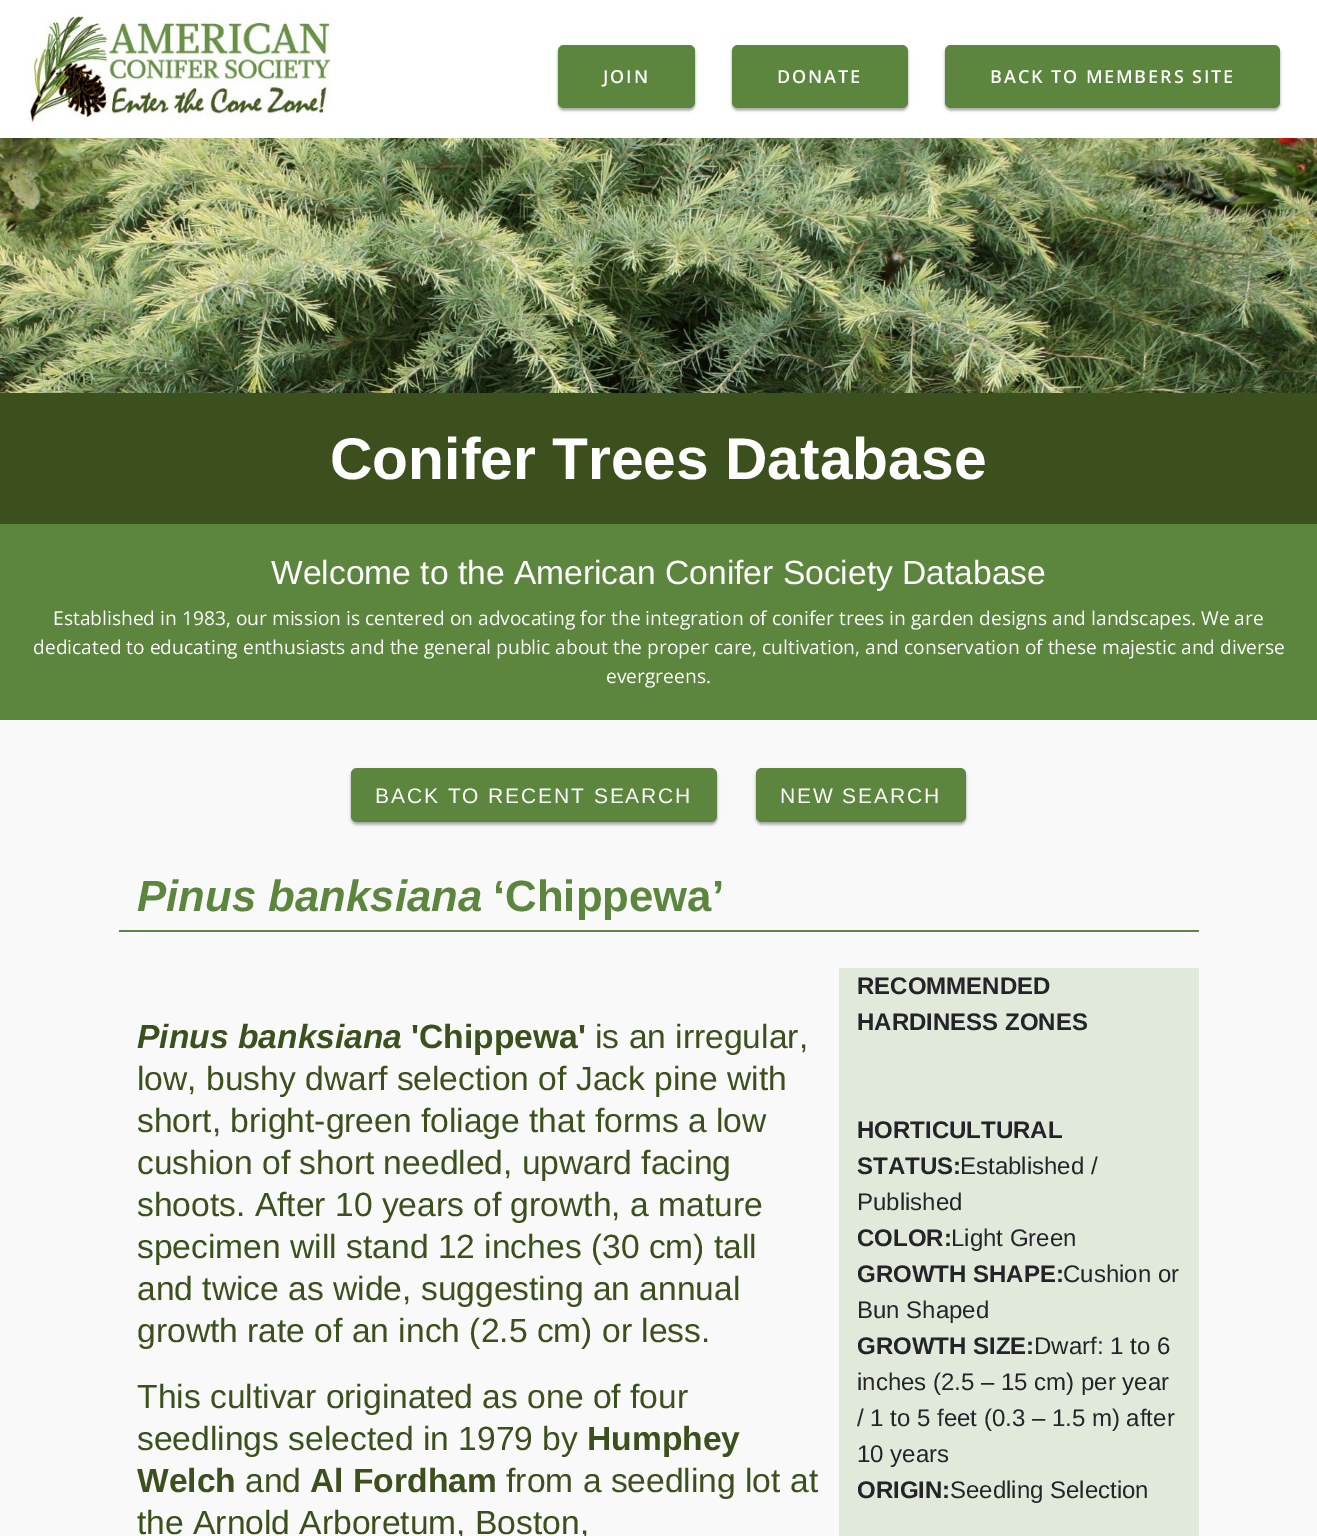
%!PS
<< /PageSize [1317 1536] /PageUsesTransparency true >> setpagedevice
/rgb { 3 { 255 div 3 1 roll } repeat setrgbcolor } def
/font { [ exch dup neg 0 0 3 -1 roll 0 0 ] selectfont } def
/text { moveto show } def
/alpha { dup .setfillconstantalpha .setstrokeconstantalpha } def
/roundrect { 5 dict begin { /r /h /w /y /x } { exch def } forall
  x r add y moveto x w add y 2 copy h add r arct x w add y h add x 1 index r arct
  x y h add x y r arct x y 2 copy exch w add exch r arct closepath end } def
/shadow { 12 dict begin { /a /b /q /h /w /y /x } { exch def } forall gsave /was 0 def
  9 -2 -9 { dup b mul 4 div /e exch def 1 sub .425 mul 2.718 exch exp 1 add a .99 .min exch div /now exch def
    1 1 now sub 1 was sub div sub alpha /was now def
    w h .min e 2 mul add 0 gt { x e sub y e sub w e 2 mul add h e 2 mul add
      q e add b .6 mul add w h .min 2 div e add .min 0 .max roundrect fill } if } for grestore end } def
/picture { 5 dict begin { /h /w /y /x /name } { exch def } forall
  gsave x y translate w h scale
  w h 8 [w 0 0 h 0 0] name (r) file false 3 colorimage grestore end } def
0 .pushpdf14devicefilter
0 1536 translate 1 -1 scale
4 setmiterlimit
249 249 249 rgb
0 0 1317 1536 rectfill
255 255 255 rgb
0 0 1317 138 rectfill
(img_01.rgb) 30 15 300 108 picture
0 0 0 rgb
558 47 137 63 6 2 0.14 shadow
558 48 137 63 6 1 0.12 shadow
558 47 137 63 6 1 0.14 shadow
92 134 61 rgb
558 45 137 63 6 roundrect fill
0 0 0 rgb
732 47 176 63 6 2 0.14 shadow
732 48 176 63 6 1 0.12 shadow
732 47 176 63 6 1 0.14 shadow
92 134 61 rgb
732 45 176 63 6 roundrect fill
0 0 0 rgb
945 47 335 63 6 2 0.14 shadow
945 48 335 63 6 1 0.12 shadow
945 47 335 63 6 1 0.14 shadow
92 134 61 rgb
945 45 335 63 6 roundrect fill
(img_02.rgb) 0 138 1317 255 picture
60 80 30 rgb
0 393 1317 131 rectfill
92 134 61 rgb
0 524 1317 196 rectfill
0 0 0 rgb
351 770 366 54 6 2 0.14 shadow
351 771 366 54 6 1 0.12 shadow
351 770 366 54 6 1 0.14 shadow
92 134 61 rgb
351 768 366 54 6 roundrect fill
0 0 0 rgb
756 770 210 54 6 2 0.14 shadow
756 771 210 54 6 1 0.12 shadow
756 770 210 54 6 1 0.14 shadow
92 134 61 rgb
756 768 210 54 6 roundrect fill
119 930 1080 2 rectfill
225 234 218 rgb
839 968 360 568 rectfill
/OpenSans-SemiBold 18 font
255 255 255 rgb
603 83 moveto 1.9 0 (JOIN) ashow
777 83 moveto 1.9 0 (DONATE) ashow
990 83 moveto 1.9 0 (BACK TO MEMBERS SITE) ashow
/LiberationSans-Bold 58.75 font
(Conifer Trees Database) 330 479 text
/LiberationSans-Regular 33.6 font
(Welcome to the American Conifer Society Database) 271 584 text
/OpenSans-Regular 19.2 font
(Established in 1983, our mission is centered on advocating for the integration of conifer trees in garden designs and landscapes. We are) 53 625 text
(dedicated to educating enthusiasts and the general public about the proper care, cultivation, and conservation of these majestic and diverse) 33 654 text
(evergreens.) 606 683 text
/LiberationSans-Regular 21 font
375 803 moveto 1.9 0 (BACK TO RECENT SEARCH) ashow
780 803 moveto 1.9 0 (NEW SEARCH) ashow
/LiberationSans-BoldItalic 43.75 font
92 134 61 rgb
(Pinus banksiana) 137 911 text
/LiberationSans-Bold 43.75 font
(‘Chippewa’) 493 911 text
/LiberationSans-BoldItalic 33.6 font
60 80 30 rgb
(Pinus banksiana) 137 1048 text
/LiberationSans-Bold 33.6 font
('Chippewa') 411 1048 text
/LiberationSans-Regular 33.6 font
(is an irregular,) 595 1048 text
(low, bushy dwarf selection of Jack pine with) 137 1090 text
(short, bright-green foliage that forms a low) 137 1132 text
(cushion of short needled, upward facing) 137 1174 text
(shoots. After 10 years of growth, a mature) 137 1216 text
(specimen will stand 12 inches \(30 cm\) tall) 137 1258 text
(and twice as wide, suggesting an annual) 137 1300 text
(growth rate of an inch \(2.5 cm\) or less.) 137 1342 text
(This cultivar originated as one of four) 137 1408 text
(seedlings selected in 1979 by) 137 1450 text
/LiberationSans-Bold 33.6 font
(Humphey) 587 1450 text
(Welch) 137 1492 text
/LiberationSans-Regular 33.6 font
(and) 245 1492 text
/LiberationSans-Bold 33.6 font
(Al Fordham) 310 1492 text
/LiberationSans-Regular 33.6 font
(from a seedling lot at) 506 1492 text
(the Arnold Arboretum, Boston,) 137 1534 text
/LiberationSans-Bold 24 font
33 37 41 rgb
(RECOMMENDED) 857 994 text
(HARDINESS ZONES) 857 1030 text
(HORTICULTURAL) 857 1138 text
(STATUS:) 857 1174 text
/LiberationSans-Regular 24 font
(Established /) 960 1174 text
(Published) 857 1210 text
/LiberationSans-Bold 24 font
(COLOR:) 857 1246 text
/LiberationSans-Regular 24 font
(Light Green) 951 1246 text
/LiberationSans-Bold 24 font
(GROWTH SHAPE:) 857 1282 text
/LiberationSans-Regular 24 font
(Cushion or) 1063 1282 text
(Bun Shaped) 857 1318 text
/LiberationSans-Bold 24 font
(GROWTH SIZE:) 857 1354 text
/LiberationSans-Regular 24 font
(Dwarf: 1 to 6) 1034 1354 text
(inches \(2.5 – 15 cm\) per year) 857 1390 text
(/ 1 to 5 feet \(0.3 – 1.5 m\) after) 857 1426 text
(10 years) 857 1462 text
/LiberationSans-Bold 24 font
(ORIGIN:) 857 1498 text
/LiberationSans-Regular 24 font
(Seedling Selection) 950 1498 text
.poppdf14devicefilter showpage
